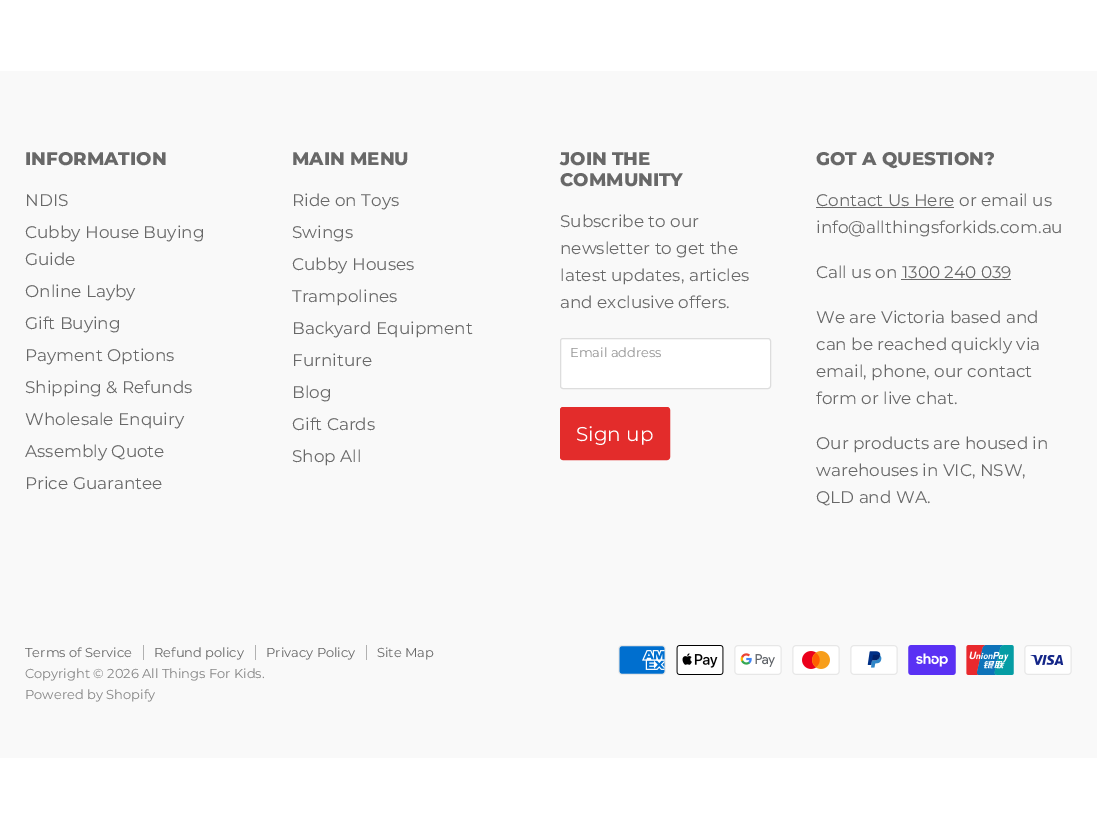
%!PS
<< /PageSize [1097 826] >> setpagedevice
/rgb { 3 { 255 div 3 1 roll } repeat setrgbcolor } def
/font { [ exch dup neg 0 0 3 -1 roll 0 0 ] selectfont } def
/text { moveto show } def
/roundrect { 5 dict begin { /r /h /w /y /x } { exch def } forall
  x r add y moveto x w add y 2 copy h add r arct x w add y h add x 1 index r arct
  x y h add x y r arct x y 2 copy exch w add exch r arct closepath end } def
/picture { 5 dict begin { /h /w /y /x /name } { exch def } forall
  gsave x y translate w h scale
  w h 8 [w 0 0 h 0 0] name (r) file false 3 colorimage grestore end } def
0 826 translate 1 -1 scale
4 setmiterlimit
255 255 255 rgb
0 0 1097 826 rectfill
249 249 249 rgb
0 71 1097 687 rectfill
255 255 255 rgb
560.5 338.5 210 50 2.5 roundrect gsave fill grestore
221 221 221 rgb
stroke
227 44 43 rgb
560.5 407.5 109 52 2.5 roundrect gsave fill grestore
stroke
104 104 104 rgb
816 207 138 1 rectfill
901 279 110 1 rectfill
177 177 177 rgb
143 645 1 15 rectfill
255 645 1 15 rectfill
366 645 1 15 rectfill
(img_01.rgb) 618 645 48 30 picture
(img_02.rgb) 676 645 48 30 picture
(img_03.rgb) 734 645 48 30 picture
(img_04.rgb) 792 645 48 30 picture
(img_05.rgb) 850 645 48 30 picture
(img_06.rgb) 908 645 48 30 picture
(img_07.rgb) 966 645 48 30 picture
(img_08.rgb) 1024 645 48 30 picture
/Montserrat-ExtraBold 18.25 font
104 104 104 rgb
(INFORMATION) 25 165 text
/Montserrat-Regular 16.9 font
(NDIS) 25 206 text
(Cubby House Buying) 25 238 text
(Guide) 25 265 text
(Online Layby) 25 297 text
(Gift Buying) 25 329 text
(Payment Options) 25 361 text
(Shipping & Refunds) 25 393 text
(Wholesale Enquiry) 25 425 text
(Assembly Quote) 25 457 text
(Price Guarantee) 25 489 text
/Montserrat-ExtraBold 18.25 font
(MAIN MENU) 292 165 text
/Montserrat-Regular 16.9 font
(Ride on Toys) 292 206 text
(Swings) 292 238 text
(Cubby Houses) 292 270 text
(Trampolines) 292 302 text
(Backyard Equipment) 292 334 text
(Furniture) 292 366 text
(Blog) 292 398 text
(Gift Cards) 292 430 text
(Shop All) 292 462 text
/Montserrat-ExtraBold 18.25 font
(JOIN THE) 560 165 text
(COMMUNITY) 560 186 text
/Montserrat-Regular 16.9 font
(Subscribe to our) 560 227 text
(newsletter to get the) 560 254 text
(latest updates, articles) 560 281 text
(and exclusive offers.) 560 308 text
/Montserrat-Regular 13 font
148 148 148 rgb
(Email address) 570 357 text
/Montserrat-Regular 20 font
255 255 255 rgb
(Sign up) 576 441 text
/Montserrat-ExtraBold 18.25 font
104 104 104 rgb
(GOT A QUESTION?) 816 165 text
/Montserrat-Regular 16.9 font
(Contact Us Here or email us) 816 206 text
(info@allthingsforkids.com.au) 816 233 text
(Call us on 1300 240 039) 816 278 text
(We are Victoria based and) 816 323 text
(can be reached quickly via) 816 350 text
(email, phone, our contact) 816 377 text
(form or live chat.) 816 404 text
(Our products are housed in) 816 449 text
(warehouses in VIC, NSW,) 816 476 text
(QLD and WA.) 816 503 text
/Montserrat-Regular 13 font
(Terms of Service) 25 657 text
(Refund policy) 154 657 text
(Privacy Policy) 266 657 text
(Site Map) 377 657 text
133 133 133 rgb
(Copyright © 2026 All Things For Kids.) 25 678 text
(Powered by Shopify) 25 699 text
showpage
